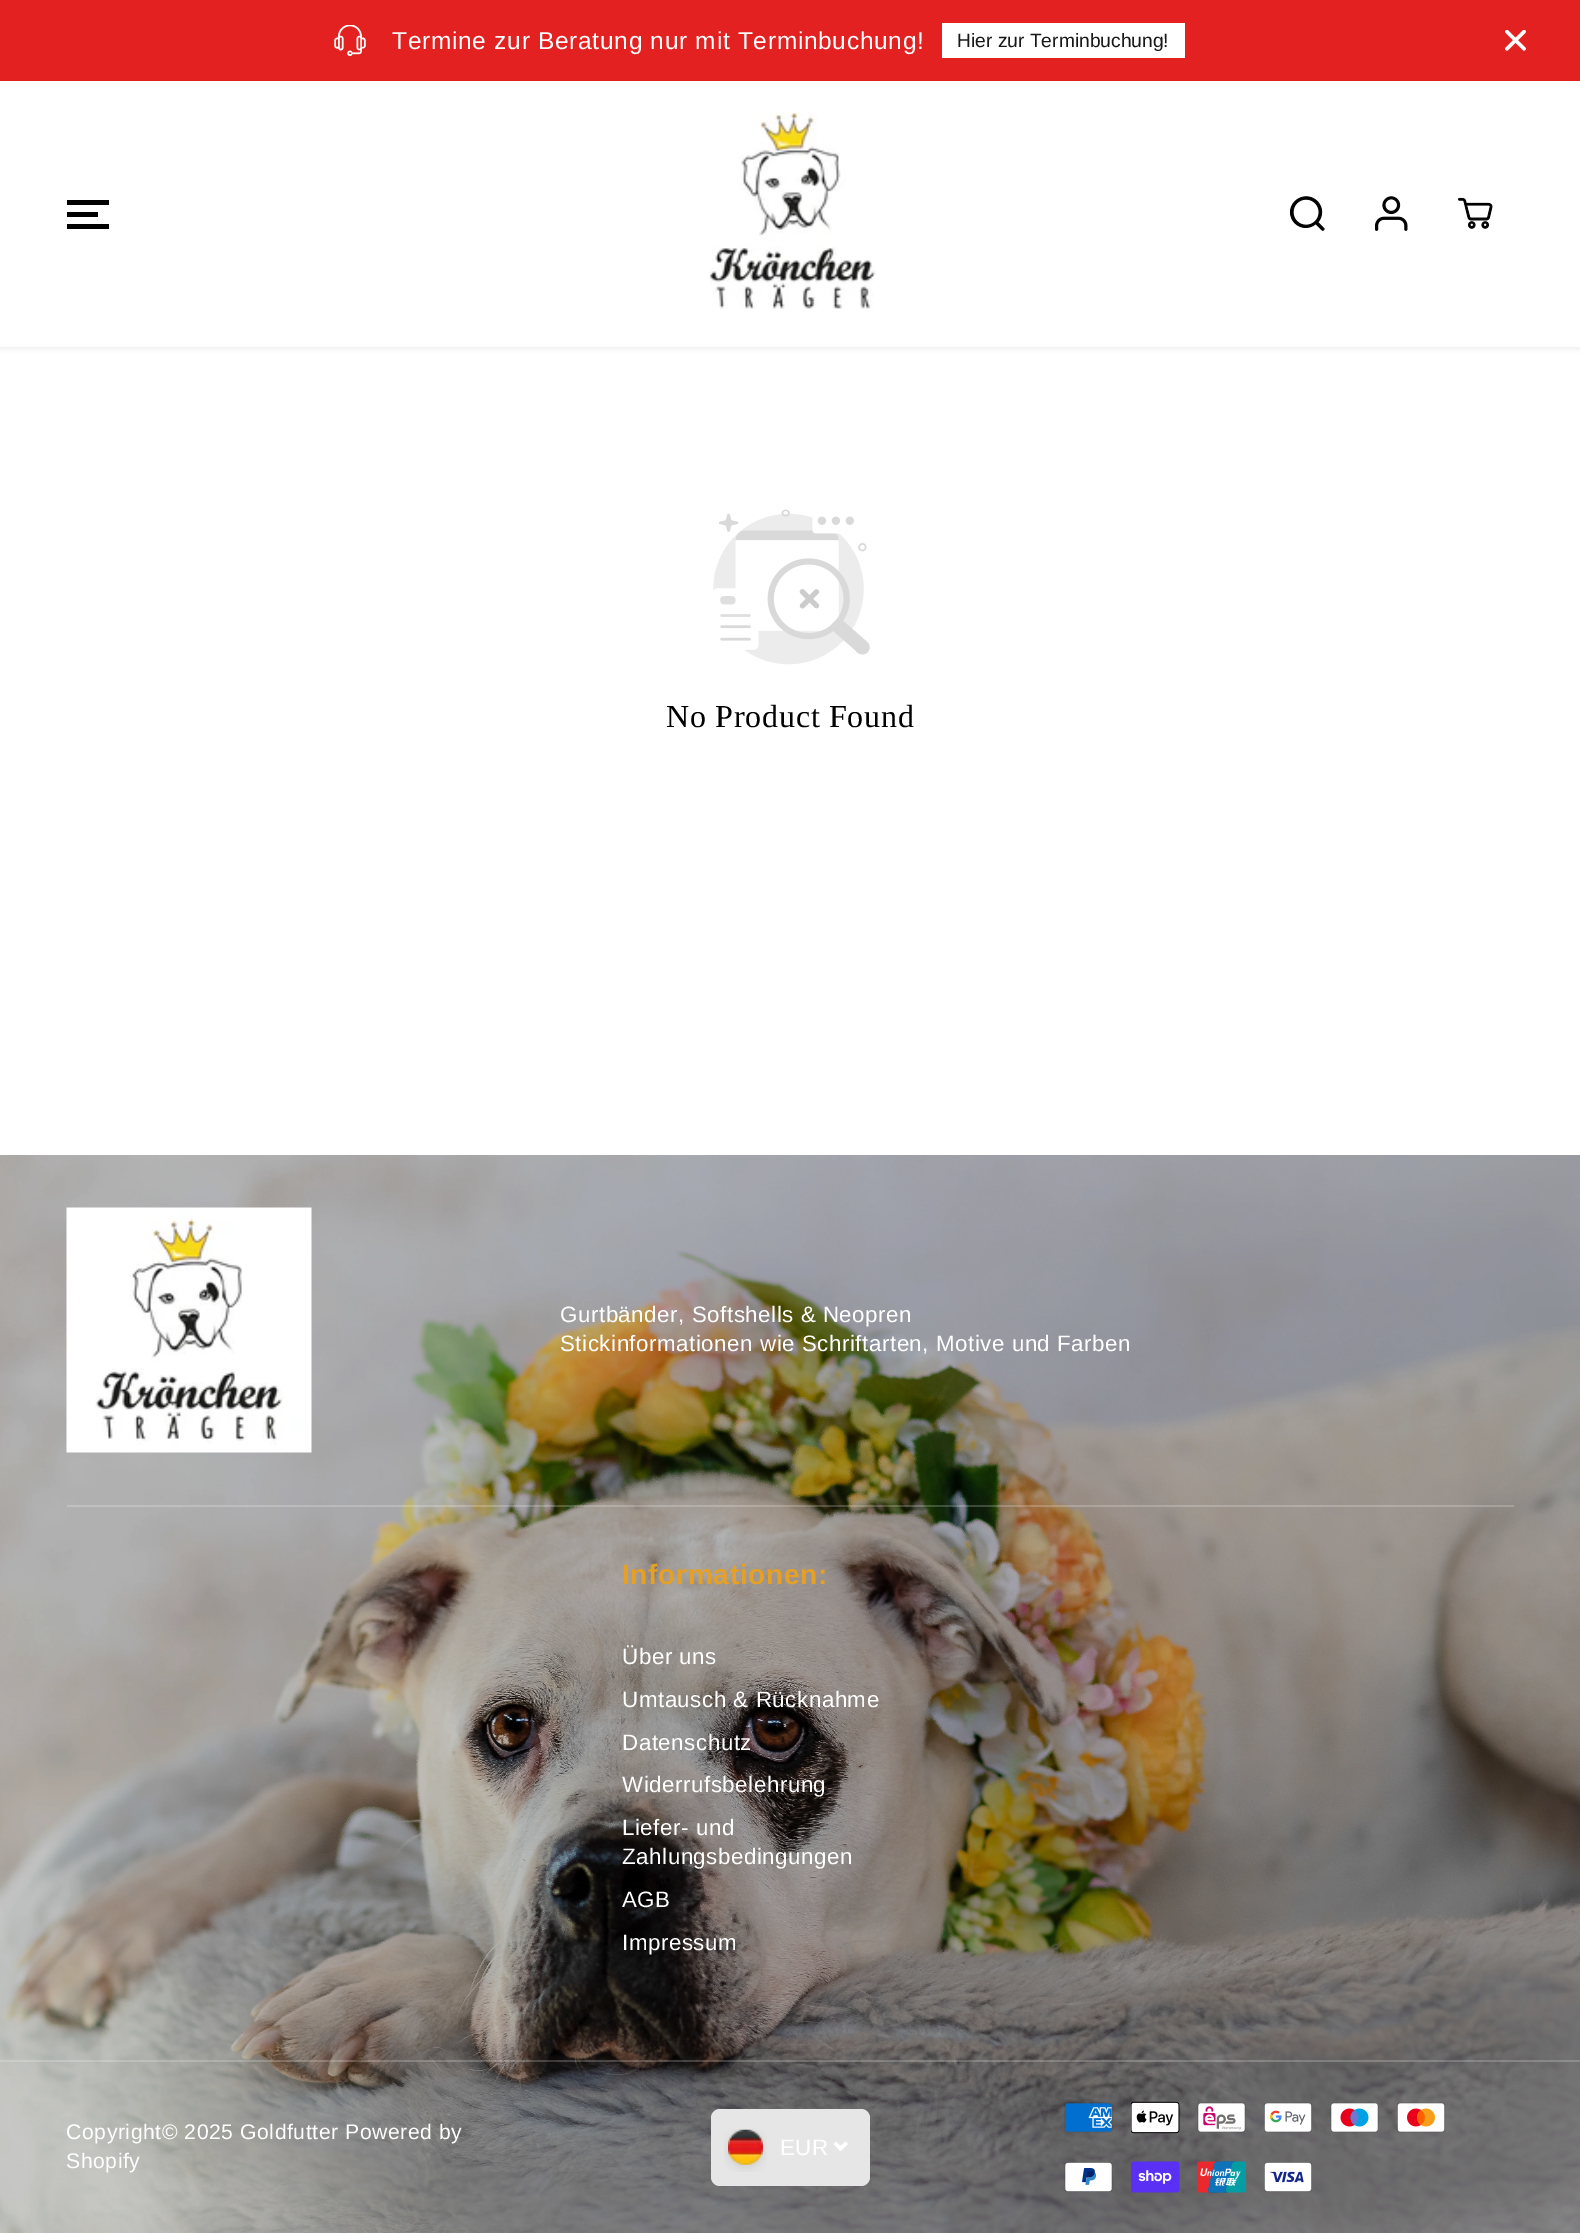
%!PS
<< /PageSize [1580 2233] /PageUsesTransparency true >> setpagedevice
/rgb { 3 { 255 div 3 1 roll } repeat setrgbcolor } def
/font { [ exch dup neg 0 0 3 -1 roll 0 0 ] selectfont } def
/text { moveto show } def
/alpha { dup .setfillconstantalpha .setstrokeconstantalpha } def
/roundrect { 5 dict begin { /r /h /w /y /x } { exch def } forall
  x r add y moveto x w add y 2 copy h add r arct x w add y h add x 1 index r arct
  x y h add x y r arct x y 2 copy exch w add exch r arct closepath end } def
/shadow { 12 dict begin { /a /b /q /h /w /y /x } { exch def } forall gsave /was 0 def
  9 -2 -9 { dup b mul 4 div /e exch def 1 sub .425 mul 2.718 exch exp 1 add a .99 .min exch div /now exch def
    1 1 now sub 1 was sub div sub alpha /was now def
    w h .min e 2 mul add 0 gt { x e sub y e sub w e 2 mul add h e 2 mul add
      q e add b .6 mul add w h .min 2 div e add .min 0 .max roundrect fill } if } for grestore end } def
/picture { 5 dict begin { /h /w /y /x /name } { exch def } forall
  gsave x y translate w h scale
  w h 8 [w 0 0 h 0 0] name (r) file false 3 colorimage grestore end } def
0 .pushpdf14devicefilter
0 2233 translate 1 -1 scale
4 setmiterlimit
255 255 255 rgb
0 0 1580 2233 rectfill
226 33 32 rgb
0 0 1580 81 rectfill
(img_01.rgb) 334 25 32 31 picture
255 255 255 rgb
942 23 243 35 rectfill
(img_02.rgb) 1505 30 21 21 picture
gsave
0 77 moveto 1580 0 rlineto 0 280 rlineto -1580 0 rlineto closepath 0 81 moveto 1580 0 rlineto 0 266 rlineto -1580 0 rlineto closepath eoclip newpath
0 0 0 rgb
0 84 1580 266 0 2 0.05 shadow
grestore
0 0 0 rgb
67 212 31 5 rectfill
67 200 42 5 rectfill
67 224 42 5 rectfill
(img_03.rgb) 710 112 166 197 picture
(img_04.rgb) 1289 196 36 35 picture
(img_05.rgb) 1375 196 33 35 picture
(img_06.rgb) 1457 197 36 32 picture
(img_07.rgb) 713 509 157 156 picture
(img_08.rgb) 0 1155 1580 1078 picture
0.2 alpha
255 255 255 rgb
67 1505 1447 2 rectfill
1 alpha
(img_09.rgb) 66 1207 246 246 picture
0.2 alpha
0 2060 1580 2 rectfill
1 alpha
230 230 230 rgb
711 2109 159 77 9 roundrect fill
(img_10.rgb) 724 2129 43 43 picture
255 255 255 rgb
845.5 2141.5 moveto 2.5 2.5 rlineto -7.5 7 rlineto -2.5 -2.5 rlineto closepath fill
836 2141.5 moveto 7 7 rlineto -2.5 2.5 rlineto -7 -7 rlineto closepath fill
(img_11.rgb) 1064 2102 49 31 picture
(img_12.rgb) 1131 2101 49 33 picture
(img_13.rgb) 1197 2102 49 31 picture
(img_14.rgb) 1264 2102 48 31 picture
(img_15.rgb) 1330 2102 49 31 picture
(img_16.rgb) 1397 2102 49 31 picture
(img_17.rgb) 1064 2162 49 30 picture
(img_18.rgb) 1131 2161 49 32 picture
(img_19.rgb) 1197 2161 49 32 picture
(img_20.rgb) 1264 2162 48 30 picture
/LiberationSans-Regular 24.5 font
392 49 moveto 0.7 0 (Termine zur Beratung nur mit Terminbuchung!) ashow
/LiberationSans-Regular 19.25 font
24 24 24 rgb
(Hier zur Terminbuchung!) 957 47 text
/LiberationSerif-Regular 32 font
0 0 0 rgb
666 727 moveto 0.75 0 (No Product Found) ashow
/LiberationSans-Regular 22.3 font
255 255 255 rgb
560 1322 moveto 0.55 0 (Gurtbänder, Softshells & Neopren) ashow
560 1351 moveto 0.55 0 (Stickinformationen wie Schriftarten, Motive und Farben) ashow
/LiberationSans-Bold 28 font
229 160 37 rgb
622 1584 moveto 0.7 0 (Informationen:) ashow
/LiberationSans-Regular 22.3 font
255 255 255 rgb
622 1664 moveto 0.55 0 (Über uns) ashow
622 1707 moveto 0.55 0 (Umtausch & Rücknahme) ashow
622 1750 moveto 0.55 0 (Datenschutz) ashow
622 1792 moveto 0.55 0 (Widerrufsbelehrung) ashow
622 1835 moveto 0.55 0 (Liefer- und) ashow
622 1864 moveto 0.55 0 (Zahlungsbedingungen) ashow
622 1907 moveto 0.55 0 (AGB) ashow
622 1950 moveto 0.55 0 (Impressum) ashow
/LiberationSans-Regular 21.2 font
66 2139 moveto 0.55 0 (Copyright© 2025 Goldfutter Powered by) ashow
66 2168 moveto 0.55 0 (Shopify) ashow
/LiberationSans-Regular 22.3 font
780 2155 moveto 0.55 0 (EUR) ashow
.poppdf14devicefilter showpage
